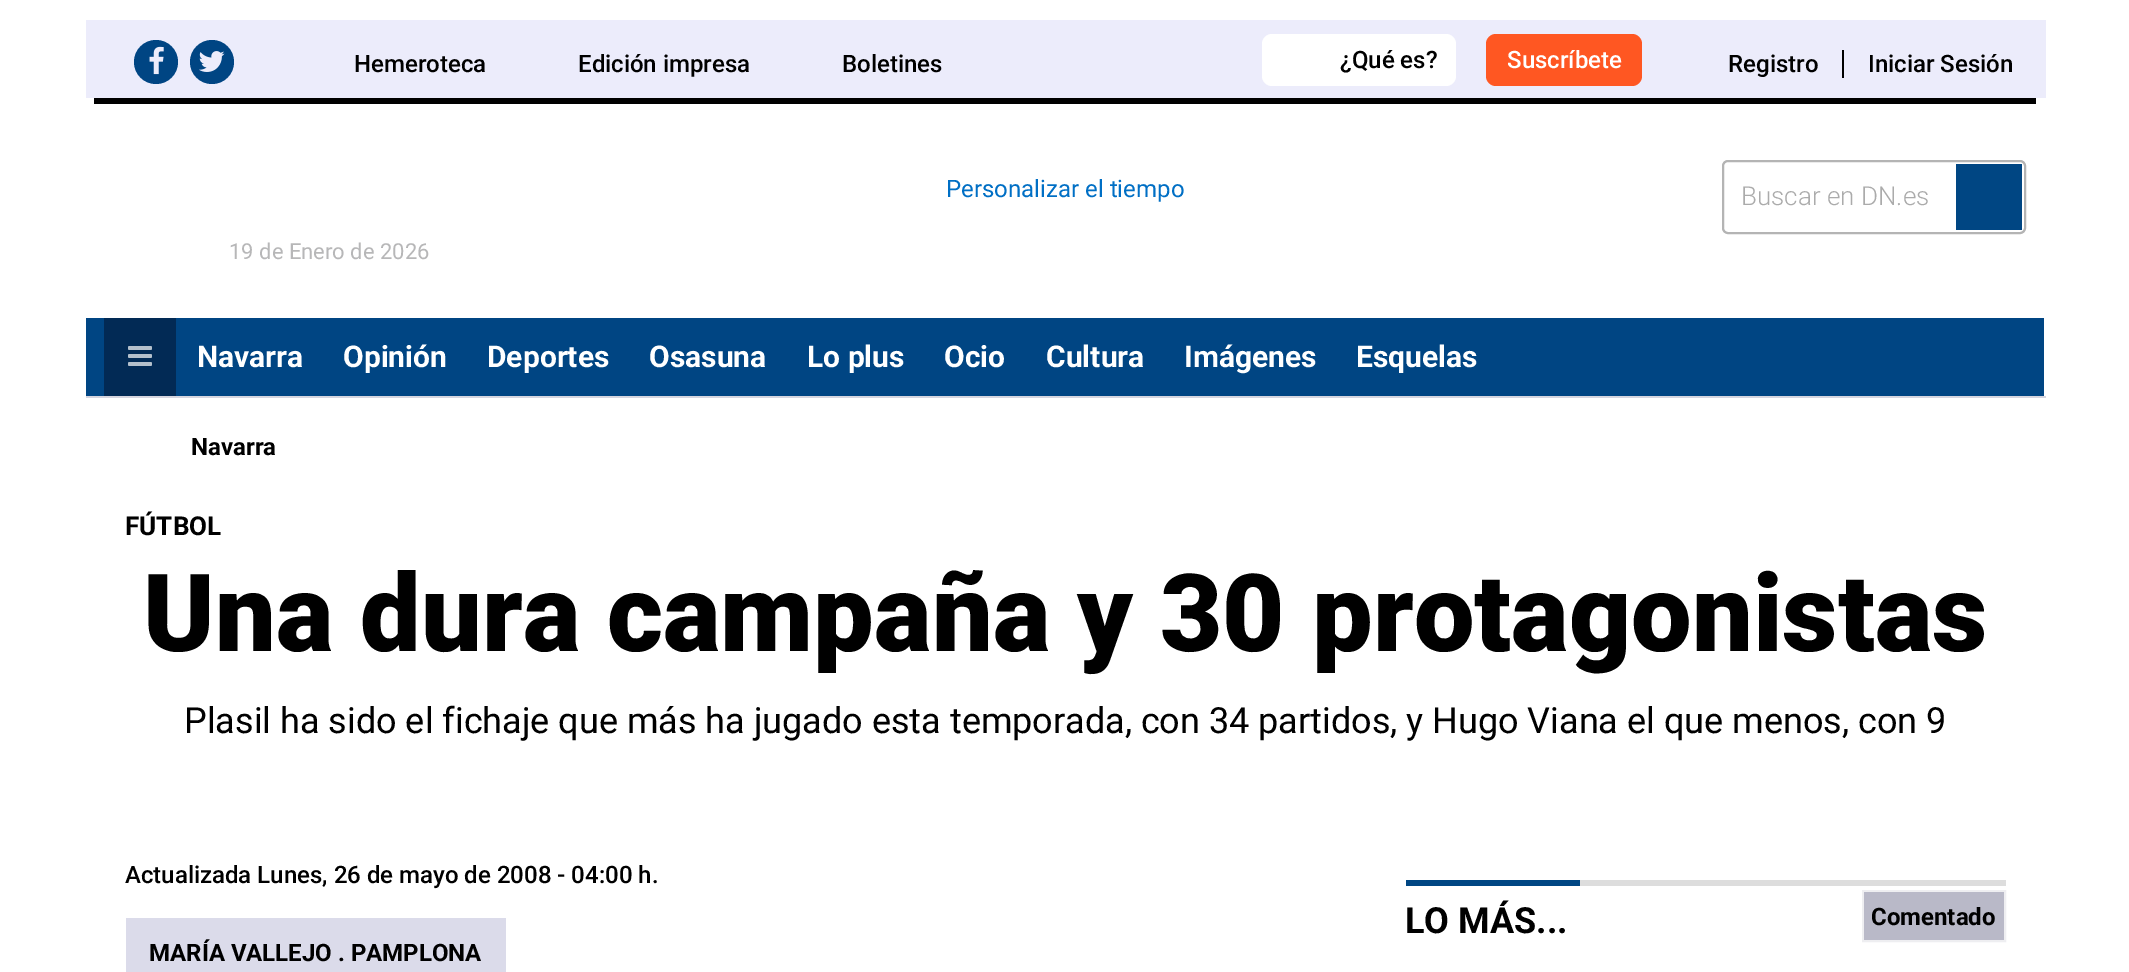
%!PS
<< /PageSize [2129 972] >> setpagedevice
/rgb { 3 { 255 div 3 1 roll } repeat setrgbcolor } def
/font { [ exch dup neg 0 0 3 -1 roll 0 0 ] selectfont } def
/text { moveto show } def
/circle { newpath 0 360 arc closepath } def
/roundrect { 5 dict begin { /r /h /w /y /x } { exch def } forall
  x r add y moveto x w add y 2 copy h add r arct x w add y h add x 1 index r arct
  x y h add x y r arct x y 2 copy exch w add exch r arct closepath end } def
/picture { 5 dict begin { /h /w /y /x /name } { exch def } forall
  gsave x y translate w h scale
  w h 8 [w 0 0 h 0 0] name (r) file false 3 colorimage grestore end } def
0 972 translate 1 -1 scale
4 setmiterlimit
255 255 255 rgb
0 0 2129 972 rectfill
236 236 251 rgb
86 20 1960 78 rectfill
0 69 131 rgb
156 62 22 circle fill
(img_01.rgb) 149 46 15 29 picture
212 62 22 circle fill
(img_02.rgb) 199 51 26 21 picture
255 255 255 rgb
1262 34 194 52 10 roundrect fill
255 87 34 rgb
1486 34 156 52 10 roundrect fill
0 0 0 rgb
1842 50 2 28 rectfill
94 98 1942 6 rectfill
180 180 180 rgb
2 setlinewidth
1723 161 302 72 5 roundrect stroke
0 70 131 rgb
1956 164 66 66 rectfill
213 213 223 rgb
86 396 1960 2 rectfill
0 69 131 rgb
86 318 18 78 rectfill
2 42 85 rgb
104 318 72 78 rectfill
(img_03.rgb) 128 346 24 20 picture
0 69 131 rgb
176 318 1868 78 rectfill
219 219 234 rgb
126 918 380 54 rectfill
221 221 221 rgb
1580 880 426 6 rectfill
0 70 131 rgb
1406 880 174 6 rectfill
238 238 241 rgb
1863 891 142 50 rectstroke
185 185 200 rgb
1864 892 140 48 rectfill
/Roboto-Medium 24 font
0 0 0 rgb
(Hemeroteca) 354 72 text
(Edición impresa) 578 72 text
(Boletines) 842 72 text
(¿Qué es?) 1340 68 text
255 255 255 rgb
(Suscríbete) 1507 68 text
0 0 0 rgb
(Registro) 1728 72 text
(Iniciar Sesión) 1868 72 text
/Roboto-Regular 24 font
0 111 197 rgb
(Personalizar el tiempo) 946 197 text
/Roboto-Regular 22 font
183 183 184 rgb
(19 de Enero de 2026) 229 259 text
/Roboto-Light 26 font
171 171 171 rgb
(Buscar en DN.es) 1741 205 text
/Roboto-Bold 30 font
255 255 255 rgb
(Navarra) 197 367 text
(Opinión) 343 367 text
(Deportes) 487 367 text
(Osasuna) 649 367 text
(Lo plus) 807 367 text
(Ocio) 944 367 text
(Cultura) 1046 367 text
(Imágenes) 1184 367 text
(Esquelas) 1356 367 text
/Roboto-Bold 24 font
0 0 0 rgb
(Navarra) 191 455 text
/Roboto-Bold 26 font
(FÚTBOL) 125 535 text
/Roboto-Black 108 font
(Una dura campaña y 30 protagonistas) 143 651 text
/Roboto-Regular 36 font
(Plasil ha sido el fichaje que más ha jugado esta temporada, con 34 partidos, y Hugo Viana el que menos, con 9) 184 733 text
/Roboto-Medium 24 font
(Actualizada Lunes, 26 de mayo de 2008 - 04:00 h.) 125 883 text
/Roboto-Bold 24 font
(MARÍA VALLEJO . PAMPLONA) 149 961 text
/Roboto-Bold 36 font
(LO MÁS...) 1405 933 text
/Roboto-Bold 24 font
(Comentado) 1871 925 text
showpage
